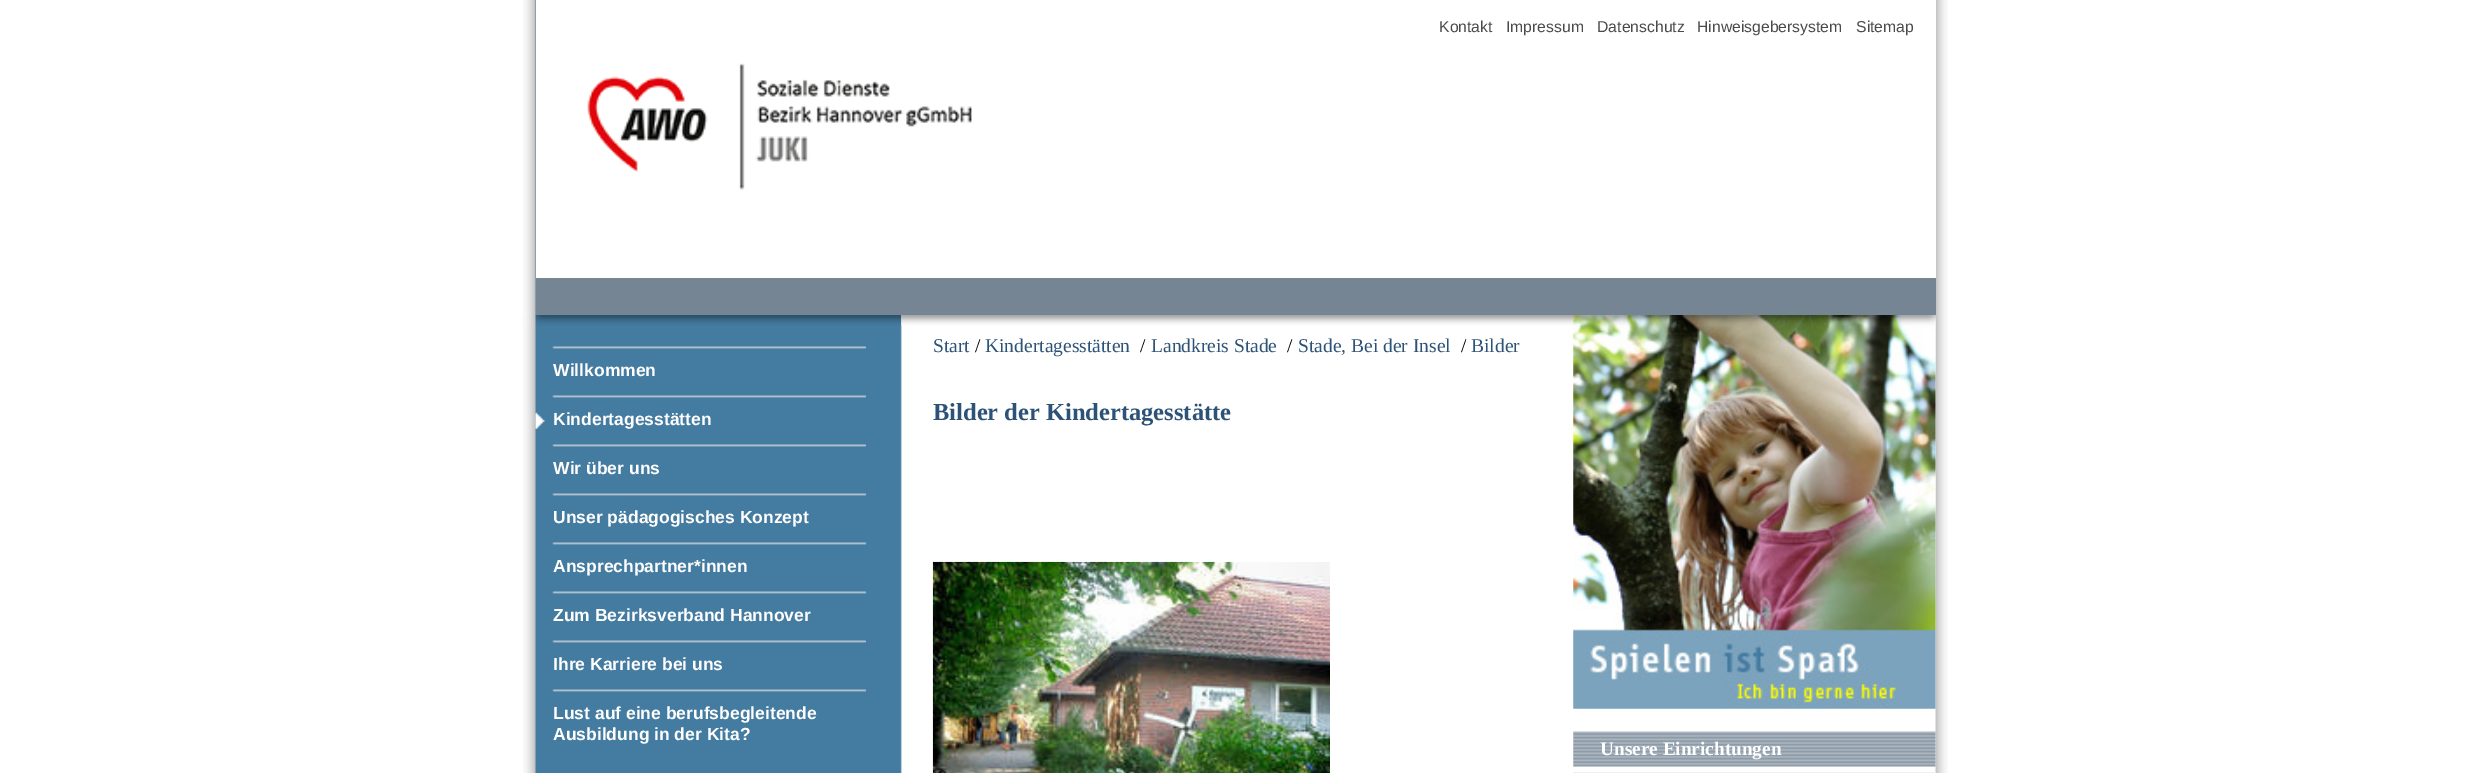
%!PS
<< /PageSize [2471 773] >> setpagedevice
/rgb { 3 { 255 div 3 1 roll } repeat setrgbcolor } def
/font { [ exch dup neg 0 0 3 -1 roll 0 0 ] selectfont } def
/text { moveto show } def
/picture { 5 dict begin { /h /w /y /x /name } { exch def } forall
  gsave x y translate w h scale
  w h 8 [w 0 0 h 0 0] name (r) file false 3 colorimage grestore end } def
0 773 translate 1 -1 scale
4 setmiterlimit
255 255 255 rgb
0 0 2471 773 rectfill
(img_01.rgb) 523 0 1425 773 picture
536 0 1400 278 rectfill
(img_02.rgb) 587 63 385 127 picture
117 133 147 rgb
536 278 1400 37 rectfill
(img_03.rgb) 522 315 380 11 picture
(img_04.rgb) 552 346 315 3 picture
(img_05.rgb) 535 395 332 34 picture
(img_04.rgb) 552 444 315 3 picture
(img_04.rgb) 552 493 315 3 picture
(img_04.rgb) 552 542 315 3 picture
(img_04.rgb) 552 591 315 3 picture
(img_04.rgb) 552 640 315 3 picture
(img_04.rgb) 552 689 315 3 picture
(img_06.rgb) 901 315 673 11 picture
(img_07.rgb) 932 561 398 212 picture
(img_08.rgb) 1573 315 363 11 picture
(img_09.rgb) 1573 315 363 394 picture
(img_10.rgb) 1573 731 363 36 picture
239 239 244 rgb
1573 772 363 1 rectfill
/LiberationSans-Regular 15.75 font
74 74 74 rgb
(Kontakt) 1439 32 text
(Impressum) 1506 32 text
(Datenschutz) 1597 32 text
(Hinweisgebersystem) 1697 32 text
(Sitemap) 1856 32 text
/LiberationSans-Bold 17.5 font
255 255 255 rgb
(Willkommen) 553 376 text
(Kindertagesstätten) 553 425 text
(Wir über uns) 553 474 text
(Unser pädagogisches Konzept) 553 523 text
(Ansprechpartner*innen) 553 572 text
(Zum Bezirksverband Hannover) 553 621 text
(Ihre Karriere bei uns) 553 670 text
(Lust auf eine berufsbegleitende) 553 719 text
(Ausbildung in der Kita?) 553 740 text
/LiberationSerif-Regular 19.5 font
45 82 119 rgb
(Start) 933 352 text
0 0 0 rgb
(/) 975 352 text
45 82 119 rgb
(Kindertagesstätten) 985 352 text
0 0 0 rgb
(/) 1140 352 text
45 82 119 rgb
(Landkreis Stade) 1151 352 text
0 0 0 rgb
(/) 1287 352 text
45 82 119 rgb
(Stade, Bei der Insel) 1298 352 text
0 0 0 rgb
(/) 1461 352 text
45 82 119 rgb
(Bilder) 1471 352 text
/LiberationSerif-Bold 24.5 font
(Bilder der Kindertagesstätte) 933 420 text
/LiberationSerif-Bold 19.25 font
255 255 255 rgb
(Unsere Einrichtungen) 1600 755 text
showpage
